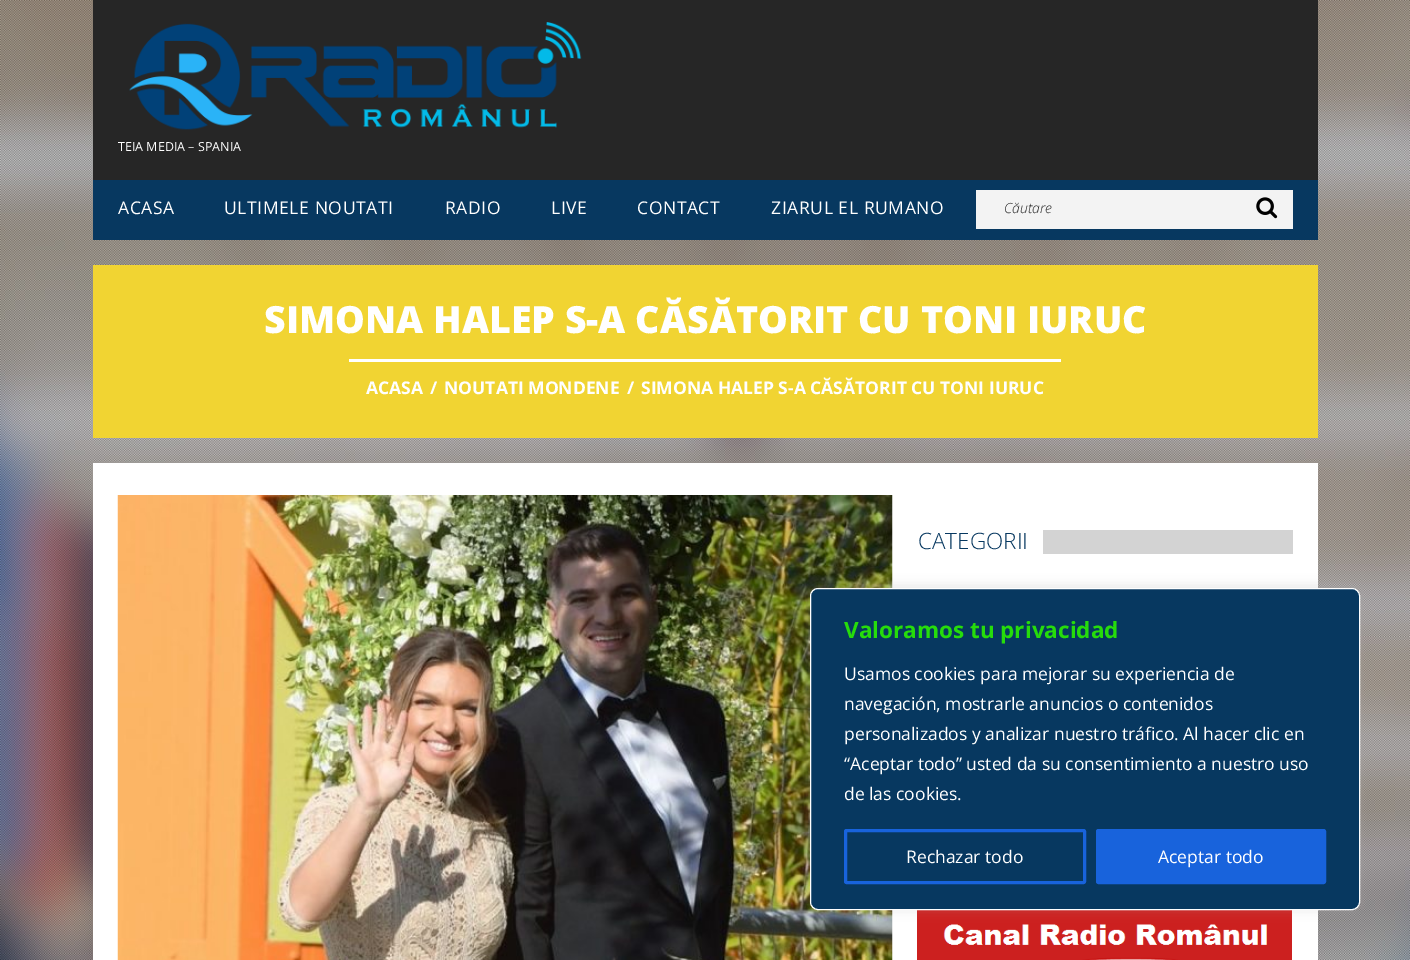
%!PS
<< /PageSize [1410 960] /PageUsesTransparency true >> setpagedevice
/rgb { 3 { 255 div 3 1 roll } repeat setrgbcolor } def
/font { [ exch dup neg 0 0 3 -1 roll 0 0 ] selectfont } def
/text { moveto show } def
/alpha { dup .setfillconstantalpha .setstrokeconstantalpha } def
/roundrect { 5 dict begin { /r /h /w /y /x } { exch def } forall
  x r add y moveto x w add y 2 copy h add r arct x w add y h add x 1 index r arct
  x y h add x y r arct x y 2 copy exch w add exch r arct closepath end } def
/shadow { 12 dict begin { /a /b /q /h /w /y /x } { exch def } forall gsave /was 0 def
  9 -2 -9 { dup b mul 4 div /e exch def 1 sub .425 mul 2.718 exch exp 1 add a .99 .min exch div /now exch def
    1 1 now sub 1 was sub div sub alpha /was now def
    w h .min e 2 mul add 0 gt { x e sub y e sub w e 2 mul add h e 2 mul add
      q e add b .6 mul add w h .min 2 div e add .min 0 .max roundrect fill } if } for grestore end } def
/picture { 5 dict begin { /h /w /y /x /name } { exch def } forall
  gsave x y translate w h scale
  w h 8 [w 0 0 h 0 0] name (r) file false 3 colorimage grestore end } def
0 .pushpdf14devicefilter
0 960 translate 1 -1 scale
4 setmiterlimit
255 255 255 rgb
0 0 1410 960 rectfill
(img_01.rgb) 0 0 1410 960 picture
38 38 38 rgb
93 0 1225 180 rectfill
(img_02.rgb) 129 22 453 108 picture
7 56 96 rgb
93 180 1225 60 rectfill
243 243 243 rgb
976 190 317 39 rectfill
(img_03.rgb) 1256 197 22 22 picture
255 255 255 rgb
93 463 1225 497 rectfill
241 212 50 rgb
93 265 1225 173 rectfill
255 255 255 rgb
349 359 712 3 rectfill
(img_04.rgb) 117 495 776 465 picture
211 211 211 rgb
1043 530 250 24 rectfill
(img_05.rgb) 917 910 375 50 picture
172 171 171 rgb
810 586 550 323 8 6 0.3 shadow
7 56 96 rgb
810.5 588.5 549 321 7.5 roundrect gsave fill grestore
255 255 255 rgb
stroke
24 99 220 rgb
3 setlinewidth
845.5 830.5 239 52 1 roundrect stroke
1097.5 830.5 227 52 1 roundrect gsave fill grestore
stroke
/OpenSans-Regular 12.5 font
255 255 255 rgb
(TEIA MEDIA – SPANIA) 118 151 text
/OpenSans-Regular 17.5 font
118 214 moveto 0.6 0 (ACASA) ashow
224 214 moveto 0.6 0 (ULTIMELE NOUTATI) ashow
445 214 moveto 0.6 0 (RADIO) ashow
551 214 moveto 0.6 0 (LIVE) ashow
637 214 moveto 0.6 0 (CONTACT) ashow
771 214 moveto 0.6 0 (ZIARUL EL RUMANO) ashow
/OpenSans-LightItalic 14 font
38 38 38 rgb
(Căutare) 1004 213 text
/OpenSans-ExtraBold 37.5 font
255 255 255 rgb
(SIMONA HALEP S-A CĂSĂTORIT CU TONI IURUC) 264 333 text
/OpenSans-Bold 17.5 font
(ACASA) 366 394 text
(/) 430 394 text
(NOUTATI MONDENE) 444 394 text
(/) 627 394 text
(SIMONA HALEP S-A CĂSĂTORIT CU TONI IURUC) 641 394 text
/OpenSans-Light 22.5 font
7 56 96 rgb
(CATEGORII) 918 549 text
/OpenSans-Bold 22.5 font
38 220 11 rgb
(Valoramos tu privacidad) 844 638 text
/OpenSans-Regular 17.5 font
255 255 255 rgb
(Usamos cookies para mejorar su experiencia de) 844 680 text
(navegación, mostrarle anuncios o contenidos) 844 710 text
(personalizados y analizar nuestro tráfico. Al hacer clic en) 844 740 text
(“Aceptar todo” usted da su consentimiento a nuestro uso) 844 770 text
(de las cookies.) 844 800 text
(Rechazar todo) 906 863 text
(Aceptar todo) 1158 863 text
.poppdf14devicefilter showpage
